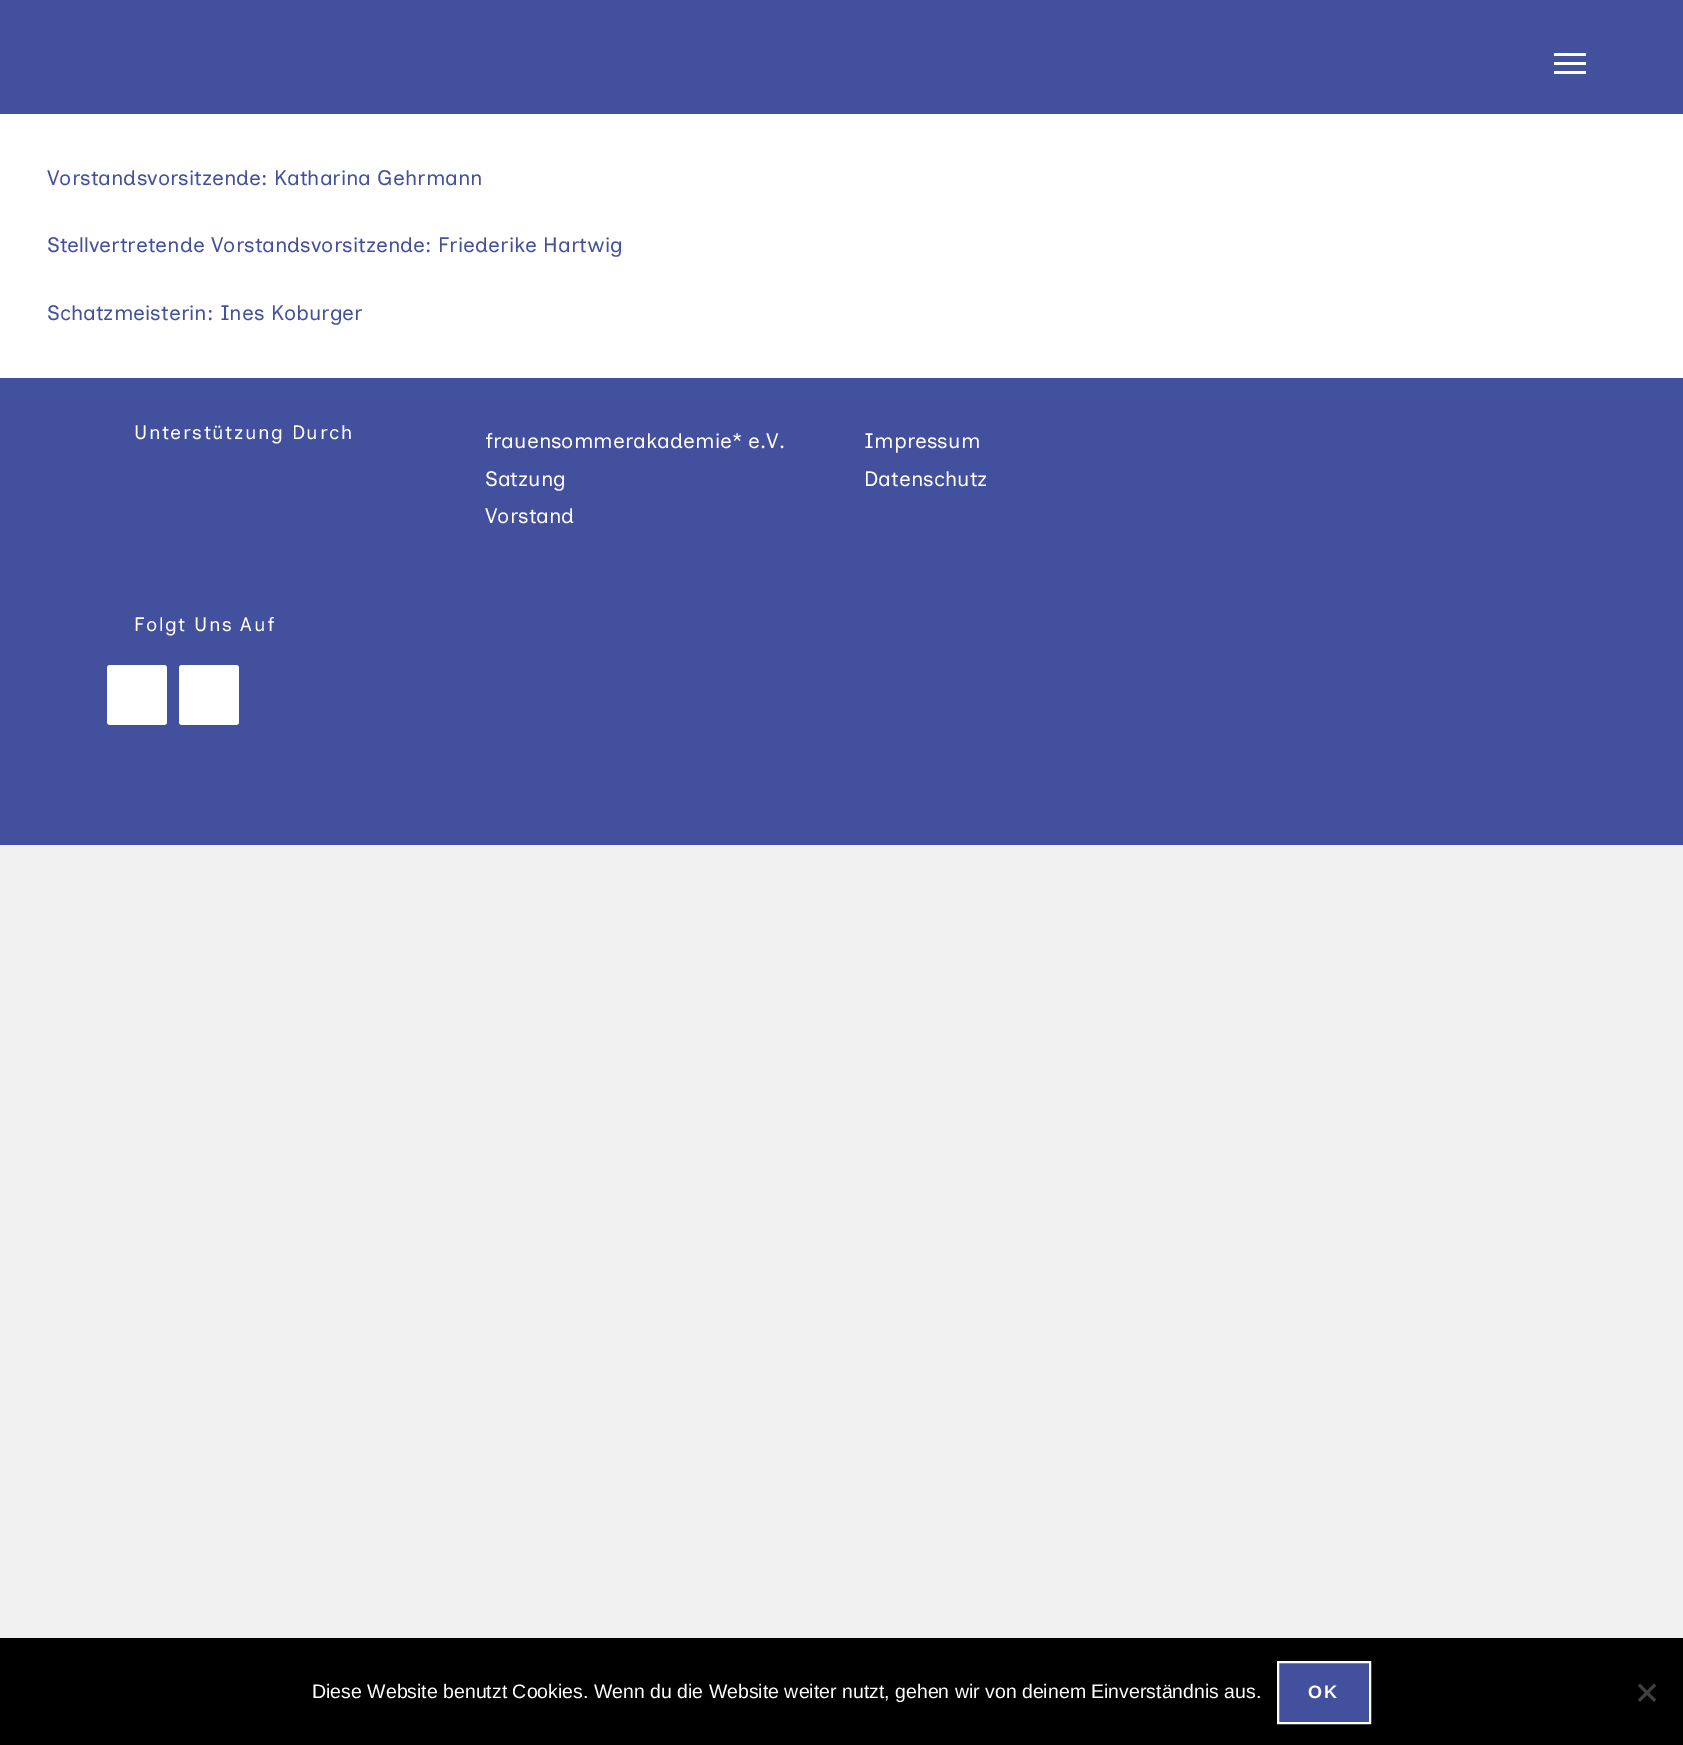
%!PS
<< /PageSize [1683 1745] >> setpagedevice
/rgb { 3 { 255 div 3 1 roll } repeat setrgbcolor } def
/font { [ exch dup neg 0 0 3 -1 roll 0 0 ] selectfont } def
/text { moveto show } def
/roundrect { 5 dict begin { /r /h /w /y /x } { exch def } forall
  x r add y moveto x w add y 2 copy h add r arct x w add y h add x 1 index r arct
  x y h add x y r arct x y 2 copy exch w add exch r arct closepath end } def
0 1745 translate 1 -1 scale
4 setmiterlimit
241 241 241 rgb
0 0 1683 1745 rectfill
67 80 158 rgb
0 0 1683 114 rectfill
255 255 255 rgb
1554 62 32 3 rectfill
1554 53 32 3 rectfill
1554 71 32 3 rectfill
0 114 1683 264 rectfill
67 80 158 rgb
0 378 1683 467 rectfill
255 255 255 rgb
107 665 60 60 3 roundrect fill
179 665 60 60 3 roundrect fill
0 0 0 rgb
0 1638 1683 107 rectfill
67 80 158 rgb
1278 1662 moveto 92 0 rlineto 0 61 rlineto -92 0 rlineto closepath gsave fill grestore
255 255 255 rgb
2 setlinewidth
stroke
64 64 64 rgb
1654 1683.5 moveto 2 2.5 rlineto -16 16 rlineto -2 -2.5 rlineto closepath fill
1638 1686 moveto 2 -2.5 rlineto 16 16 rlineto -2 2.5 rlineto closepath fill
/InclusiveSans-Regular 21 font
67 80 158 rgb
(Vorstandsvorsitzende: Katharina Gehrmann) 47 185 text
(Stellvertretende Vorstandsvorsitzende: Friederike Hartwig) 47 252 text
(Schatzmeisterin: Ines Koburger) 47 320 text
/InclusiveSans-Regular 19.5 font
255 255 255 rgb
134 439 moveto 1.5 0 (Unterstützung Durch) ashow
134 631 moveto 1.5 0 (Folgt Uns Auf) ashow
/InclusiveSans-Regular 21 font
(frauensommerakademie* e.V.) 485 448 text
(Satzung) 485 486 text
(Vorstand) 485 523 text
(Impressum) 864 448 text
(Datenschutz) 864 486 text
/LiberationSans-Regular 19.5 font
(Diese Website benutzt Cookies. Wenn du die Website weiter nutzt, gehen wir von deinem Einverständnis aus.) 312 1698 text
/LiberationSans-Bold 18 font
1308 1698 moveto 2 0 (OK) ashow
showpage
